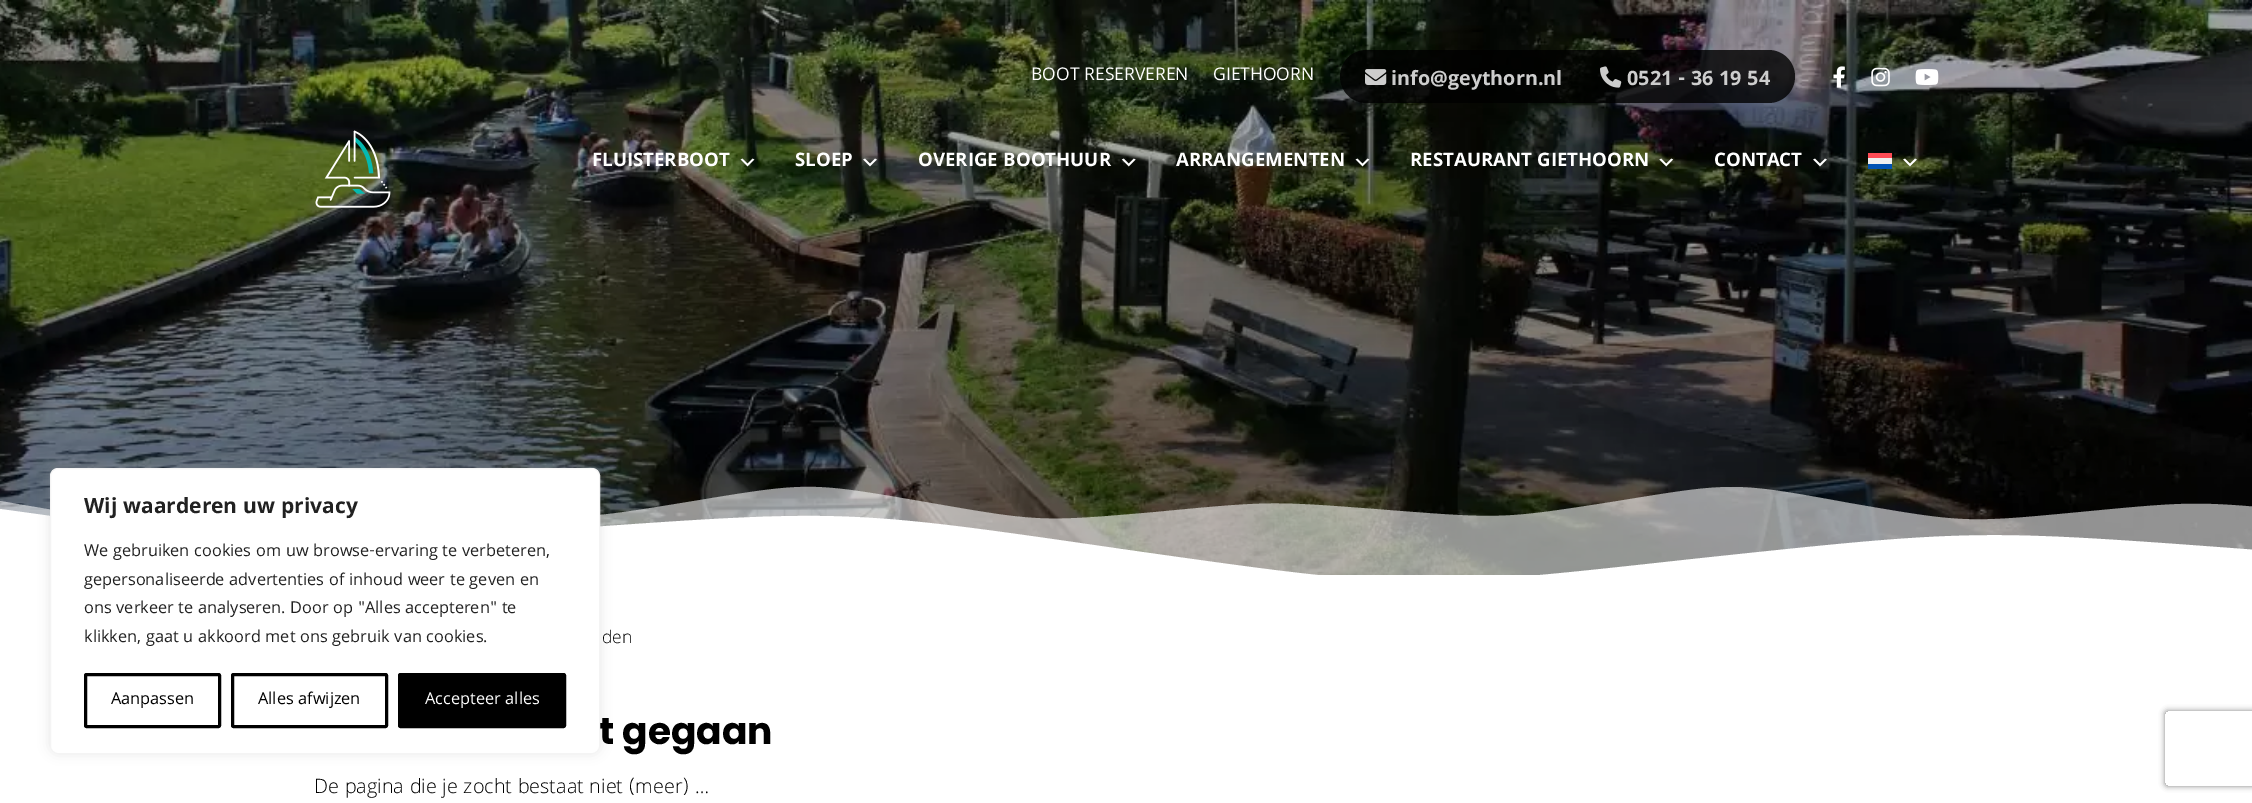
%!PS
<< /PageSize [2252 803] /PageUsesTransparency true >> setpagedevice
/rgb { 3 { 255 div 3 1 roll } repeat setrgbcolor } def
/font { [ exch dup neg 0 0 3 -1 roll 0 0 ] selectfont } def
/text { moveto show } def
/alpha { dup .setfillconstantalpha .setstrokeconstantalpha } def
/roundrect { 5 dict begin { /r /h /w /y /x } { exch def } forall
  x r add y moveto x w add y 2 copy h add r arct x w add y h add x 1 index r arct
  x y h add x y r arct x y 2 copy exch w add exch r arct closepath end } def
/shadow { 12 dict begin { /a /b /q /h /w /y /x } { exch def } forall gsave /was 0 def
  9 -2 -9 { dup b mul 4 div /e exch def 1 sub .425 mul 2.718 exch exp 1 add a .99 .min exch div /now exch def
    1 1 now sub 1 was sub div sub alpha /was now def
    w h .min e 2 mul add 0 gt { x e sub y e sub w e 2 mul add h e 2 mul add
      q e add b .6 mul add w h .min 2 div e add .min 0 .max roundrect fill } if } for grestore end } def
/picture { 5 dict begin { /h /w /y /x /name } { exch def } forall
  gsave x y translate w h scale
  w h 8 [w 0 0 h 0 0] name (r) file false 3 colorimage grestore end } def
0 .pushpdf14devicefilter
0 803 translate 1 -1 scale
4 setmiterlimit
255 255 255 rgb
0 0 2252 803 rectfill
(img_01.rgb) 0 0 2252 575 picture
0.8 alpha
0 0 0 rgb
1340 50 455 53 26.5 roundrect fill
1 alpha
(img_02.rgb) 1365 69 22 16 picture
(img_03.rgb) 1600 66 22 22 picture
(img_04.rgb) 1833 66 12 22 picture
(img_05.rgb) 1871 67 19 20 picture
(img_06.rgb) 1915 69 24 16 picture
(img_07.rgb) 315 130 76 78 picture
(img_08.rgb) 740 158 15 9 picture
(img_09.rgb) 863 158 14 9 picture
(img_10.rgb) 1121 158 15 9 picture
(img_11.rgb) 1355 158 15 9 picture
(img_12.rgb) 1659 158 15 9 picture
(img_13.rgb) 1813 158 14 9 picture
255 75 85 rgb
1868 153 24 5 rectfill
240 240 240 rgb
1868 158 24 6 rectfill
(img_14.rgb) 1903 158 14 9 picture
0 82 180 rgb
1868 164 24 5 rectfill
gsave
0 475 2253 138 rectclip
0.57 alpha
255 255 255 rgb
0 501 moveto 116 20 116 20 231 10 rcurveto 116 -10 116 -10 231 0 rcurveto 116 9 116 9 232 -10 rcurveto 115 -19 115 -19 231 1 rcurveto 115 20 115 20 231 10 rcurveto 115 -11 115 -11 231 -2 rcurveto 116 9 116 9 231 -9 rcurveto 116 -19 116 -19 231 2 rcurveto 116 20 116 20 232 9 rcurveto 115 -11 115 -11 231 0 rcurveto 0 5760 rlineto -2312 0 rlineto closepath fill
1 alpha
0 509 moveto 282 39 282 39 564 20 rcurveto 282 -20 282 -20 564 21 rcurveto 283 40 283 40 565 9 rcurveto 282 -30 282 -30 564 -9 rcurveto 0 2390 rlineto -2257 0 rlineto closepath fill
grestore
172 171 171 rgb
50 466 550 287 8 6 0.3 shadow
gsave
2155 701 moveto 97 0 rlineto 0 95 rlineto -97 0 rlineto closepath 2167.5 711 moveto 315 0 rlineto 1.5 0 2.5 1 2.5 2.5 rcurveto 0 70 rlineto 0 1.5 -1 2.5 -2.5 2.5 rcurveto -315 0 rlineto -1.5 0 -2.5 -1 -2.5 -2.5 rcurveto 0 -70 rlineto 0 -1.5 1 -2.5 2.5 -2.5 rcurveto closepath eoclip newpath
128 128 128 rgb
2165 711 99 75 2.5 3 1 shadow
grestore
/Khula-Regular 18.75 font
255 255 255 rgb
(BOOT RESERVEREN) 1031 80 text
(GIETHOORN) 1213 80 text
/Khula-Bold 21.25 font
205 205 205 rgb
(info@geythorn.nl) 1391 85 text
(0521 - 36 19 54) 1627 85 text
/Khula-Bold 20 font
255 255 255 rgb
(FLUISTERBOOT) 592 166 text
(SLOEP) 795 166 text
(OVERIGE BOOTHUUR) 918 166 text
(ARRANGEMENTEN) 1176 166 text
(RESTAURANT GIETHOORN) 1410 166 text
(CONTACT) 1714 166 text
/Khula-Light 18.75 font
0 0 0 rgb
(den) 602 643 text
/Poppins-Bold 37.5 font
(t gegaan) 599 744 text
255 255 255 rgb
50.5 468.5 549 285 7.5 roundrect gsave fill grestore
244 244 244 rgb
stroke
0 0 0 rgb
399.5 674.5 165 52 1 roundrect gsave fill grestore
3 setlinewidth
stroke
/Khula-Regular 17.5 font
255 255 255 rgb
(Accepteer alles) 425 704 text
0 0 0 rgb
232.5 674.5 154 52 1 roundrect stroke
(Alles afwijzen) 258 704 text
85.5 674.5 134 52 1 roundrect stroke
(Aanpassen) 111 704 text
33 33 33 rgb
(klikken, gaat u akkoord met ons gebruik van cookies.) 84 642 text
(ons verkeer te analyseren. Door op "Alles accepteren" te) 84 613 text
(gepersonaliseerde advertenties of inhoud weer te geven en) 84 585 text
(We gebruiken cookies om uw browse-ervaring te verbeteren,) 84 556 text
/Khula-Bold 22.5 font
(Wij waarderen uw privacy) 84 513 text
/Khula-Light 21.25 font
0 0 0 rgb
(De pagina die je zocht bestaat niet \(meer\) …) 314 793 text
.poppdf14devicefilter showpage
